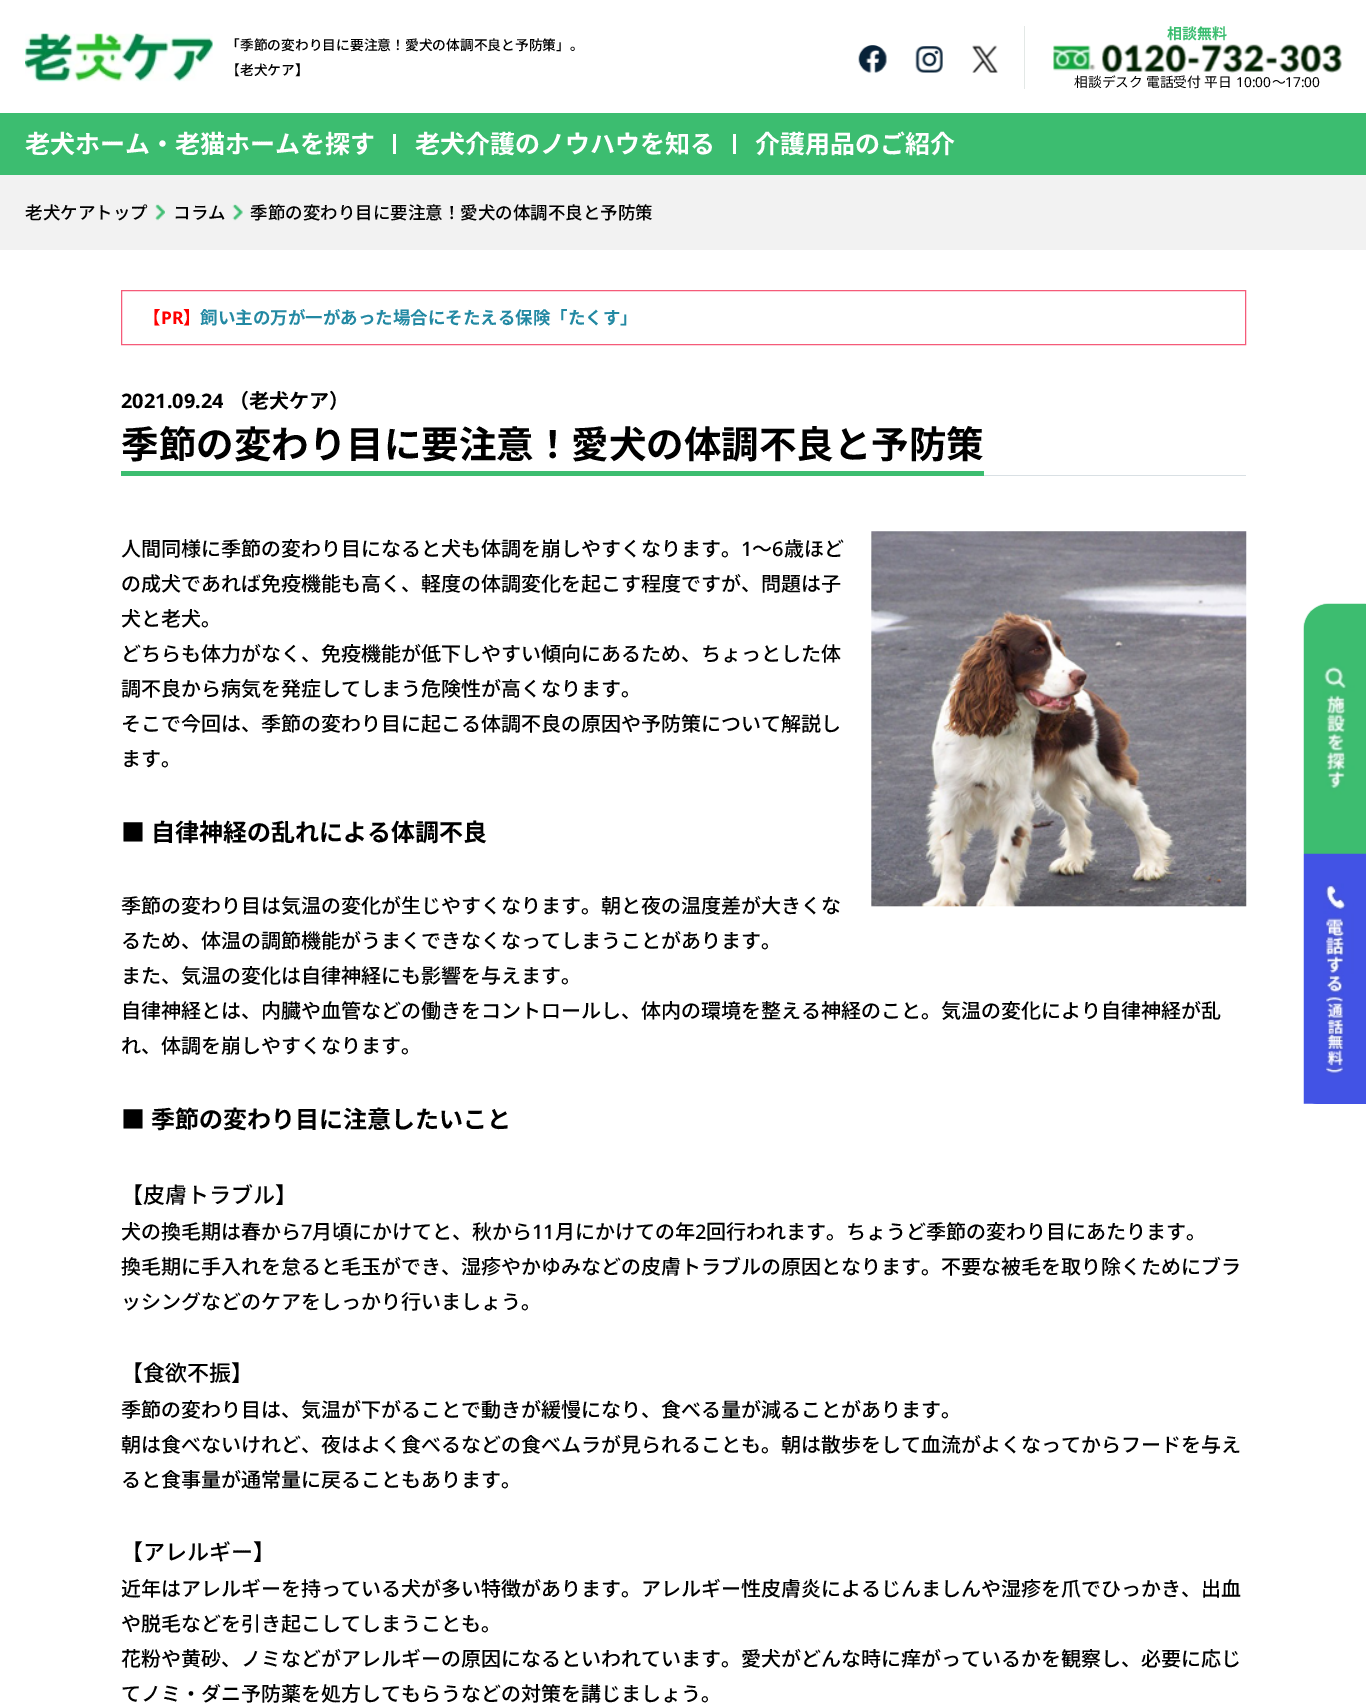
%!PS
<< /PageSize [1366 1706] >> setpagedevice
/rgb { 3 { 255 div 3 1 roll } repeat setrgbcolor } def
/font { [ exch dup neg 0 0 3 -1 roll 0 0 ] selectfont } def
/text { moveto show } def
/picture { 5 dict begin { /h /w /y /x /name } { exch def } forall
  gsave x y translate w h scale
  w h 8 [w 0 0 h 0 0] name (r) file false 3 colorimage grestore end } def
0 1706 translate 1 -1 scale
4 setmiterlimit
255 255 255 rgb
0 0 1366 1706 rectfill
(img_01.rgb) 25 33 188 49 picture
227 232 230 rgb
1024 26 1 63 rectfill
(img_02.rgb) 858 45 29 28 picture
(img_03.rgb) 915 46 28 27 picture
(img_04.rgb) 972 45 26 28 picture
(img_05.rgb) 1053 44 289 29 picture
60 189 112 rgb
0 113 1366 62 rectfill
255 255 255 rgb
393 134 3 20 rectfill
733 134 3 20 rectfill
242 242 242 rgb
0 175 1366 75 rectfill
(img_06.rgb) 155 204 10 17 picture
(img_07.rgb) 232 204 11 17 picture
245 91 121 rgb
121.5 290.5 1124 54 rectstroke
217 224 228 rgb
984 475 262 1 rectfill
60 189 112 rgb
121 471 863 5 rectfill
(img_08.rgb) 871 531 376 376 picture
(img_09.rgb) 1303 603 63 251 picture
(img_10.rgb) 1303 853 63 251 picture
/NotoSansCJKJP-Medium 13.75 font
0 0 0 rgb
(「季節の変わり目に要注意！愛犬の体調不良と予防策」。) 226 50 text
(【老犬ケア】) 226 75 text
/NotoSansCJKJP-Bold 15 font
60 189 112 rgb
(相談無料) 1167 39 text
/NotoSansCJKJP-Regular 13.75 font
0 0 0 rgb
(相談デスク 電話受付 平日) 1074 87 text
/NotoSans-Regular 13.75 font
(10:00) 1236 87 text
/NotoSansCJKJP-Regular 13.75 font
(～) 1272 87 text
/NotoSans-Regular 13.75 font
(17:00) 1285 87 text
/NotoSansCJKJP-Bold 25 font
255 255 255 rgb
(老犬ホーム・老猫ホームを探す) 25 153 text
(老犬介護のノウハウを知る) 415 153 text
(介護用品のご紹介) 755 153 text
/NotoSansCJKJP-Medium 17.5 font
0 0 0 rgb
(老犬ケアトップ) 25 219 text
(コラム) 173 219 text
(季節の変わり目に要注意！愛犬の体調不良と予防策) 250 219 text
/NotoSansCJKJP-Bold 17.5 font
255 0 0 rgb
(【) 143 324 text
/NotoSans-Bold 17.5 font
(PR) 161 324 text
/NotoSansCJKJP-Bold 17.5 font
(】) 183 324 text
35 137 163 rgb
(飼い主の万が一があった場合にそたえる保険「たくす」) 200 324 text
/NotoSans-Bold 20 font
0 0 0 rgb
(2021.09.24) 121 408 text
/NotoSansCJKJP-Bold 20 font
(（老犬ケア）) 229 408 text
/NotoSansCJKJP-Bold 37.5 font
(季節の変わり目に要注意！愛犬の体調不良と予防策) 121 458 text
/NotoSansCJKJP-Medium 20 font
(人間同様に季節の変わり目になると犬も体調を崩しやすくなります。) 121 556 text
/NotoSans-Medium 20 font
(1) 741 556 text
/NotoSansCJKJP-Medium 20 font
(〜) 752 556 text
/NotoSans-Medium 20 font
(6) 772 556 text
/NotoSansCJKJP-Medium 20 font
(歳ほど) 784 556 text
(の成犬であれば免疫機能も高く、軽度の体調変化を起こす程度ですが、問題は子) 121 591 text
(犬と老犬。) 121 626 text
(どちらも体力がなく、免疫機能が低下しやすい傾向にあるため、ちょっとした体) 121 661 text
(調不良から病気を発症してしまう危険性が高くなります。) 121 696 text
(そこで今回は、季節の変わり目に起こる体調不良の原因や予防策について解説し) 121 731 text
(ます。) 121 766 text
/NotoSansCJKJP-Bold 24 font
121 841 moveto 1 0 32 (■ 自律神経の乱れによる体調不良) widthshow
/NotoSansCJKJP-Medium 20 font
(季節の変わり目は気温の変化が生じやすくなります。朝と夜の温度差が大きくな) 121 913 text
(るため、体温の調節機能がうまくできなくなってしまうことがあります。) 121 948 text
(また、気温の変化は自律神経にも影響を与えます。) 121 983 text
(自律神経とは、内臓や血管などの働きをコントロールし、体内の環境を整える神経のこと。気温の変化により自律神経が乱) 121 1018 text
(れ、体調を崩しやすくなります。) 121 1053 text
/NotoSansCJKJP-Bold 24 font
121 1128 moveto 1 0 32 (■ 季節の変わり目に注意したいこと) widthshow
/NotoSansCJKJP-Medium 22 font
(【皮膚トラブル】) 121 1203 text
/NotoSansCJKJP-Medium 20 font
(犬の換毛期は春から) 121 1239 text
/NotoSans-Medium 20 font
(7) 301 1239 text
/NotoSansCJKJP-Medium 20 font
(月頃にかけてと、秋から) 312 1239 text
/NotoSans-Medium 20 font
(11) 532 1239 text
/NotoSansCJKJP-Medium 20 font
(月にかけての年) 555 1239 text
/NotoSans-Medium 20 font
(2) 695 1239 text
/NotoSansCJKJP-Medium 20 font
(回行われます。ちょうど季節の変わり目にあたります。) 706 1239 text
(換毛期に手入れを怠ると毛玉ができ、湿疹やかゆみなどの皮膚トラブルの原因となります。不要な被毛を取り除くためにブラ) 121 1274 text
(ッシングなどのケアをしっかり行いましょう。) 121 1309 text
/NotoSansCJKJP-Medium 22 font
(【食欲不振】) 121 1381 text
/NotoSansCJKJP-Medium 20 font
(季節の変わり目は、気温が下がることで動きが緩慢になり、食べる量が減ることがあります。) 121 1417 text
(朝は食べないけれど、夜はよく食べるなどの食べムラが見られることも。朝は散歩をして血流がよくなってからフードを与え) 121 1452 text
(ると食事量が通常量に戻ることもあります。) 121 1487 text
/NotoSansCJKJP-Medium 22 font
(【アレルギー】) 121 1560 text
/NotoSansCJKJP-Medium 20 font
(近年はアレルギーを持っている犬が多い特徴があります。アレルギー性皮膚炎によるじんましんや湿疹を爪でひっかき、出血) 121 1596 text
(や脱毛などを引き起こしてしまうことも。) 121 1631 text
(花粉や黄砂、ノミなどがアレルギーの原因になるといわれています。愛犬がどんな時に痒がっているかを観察し、必要に応じ) 121 1666 text
(てノミ・ダニ予防薬を処方してもらうなどの対策を講じましょう。) 121 1701 text
showpage
